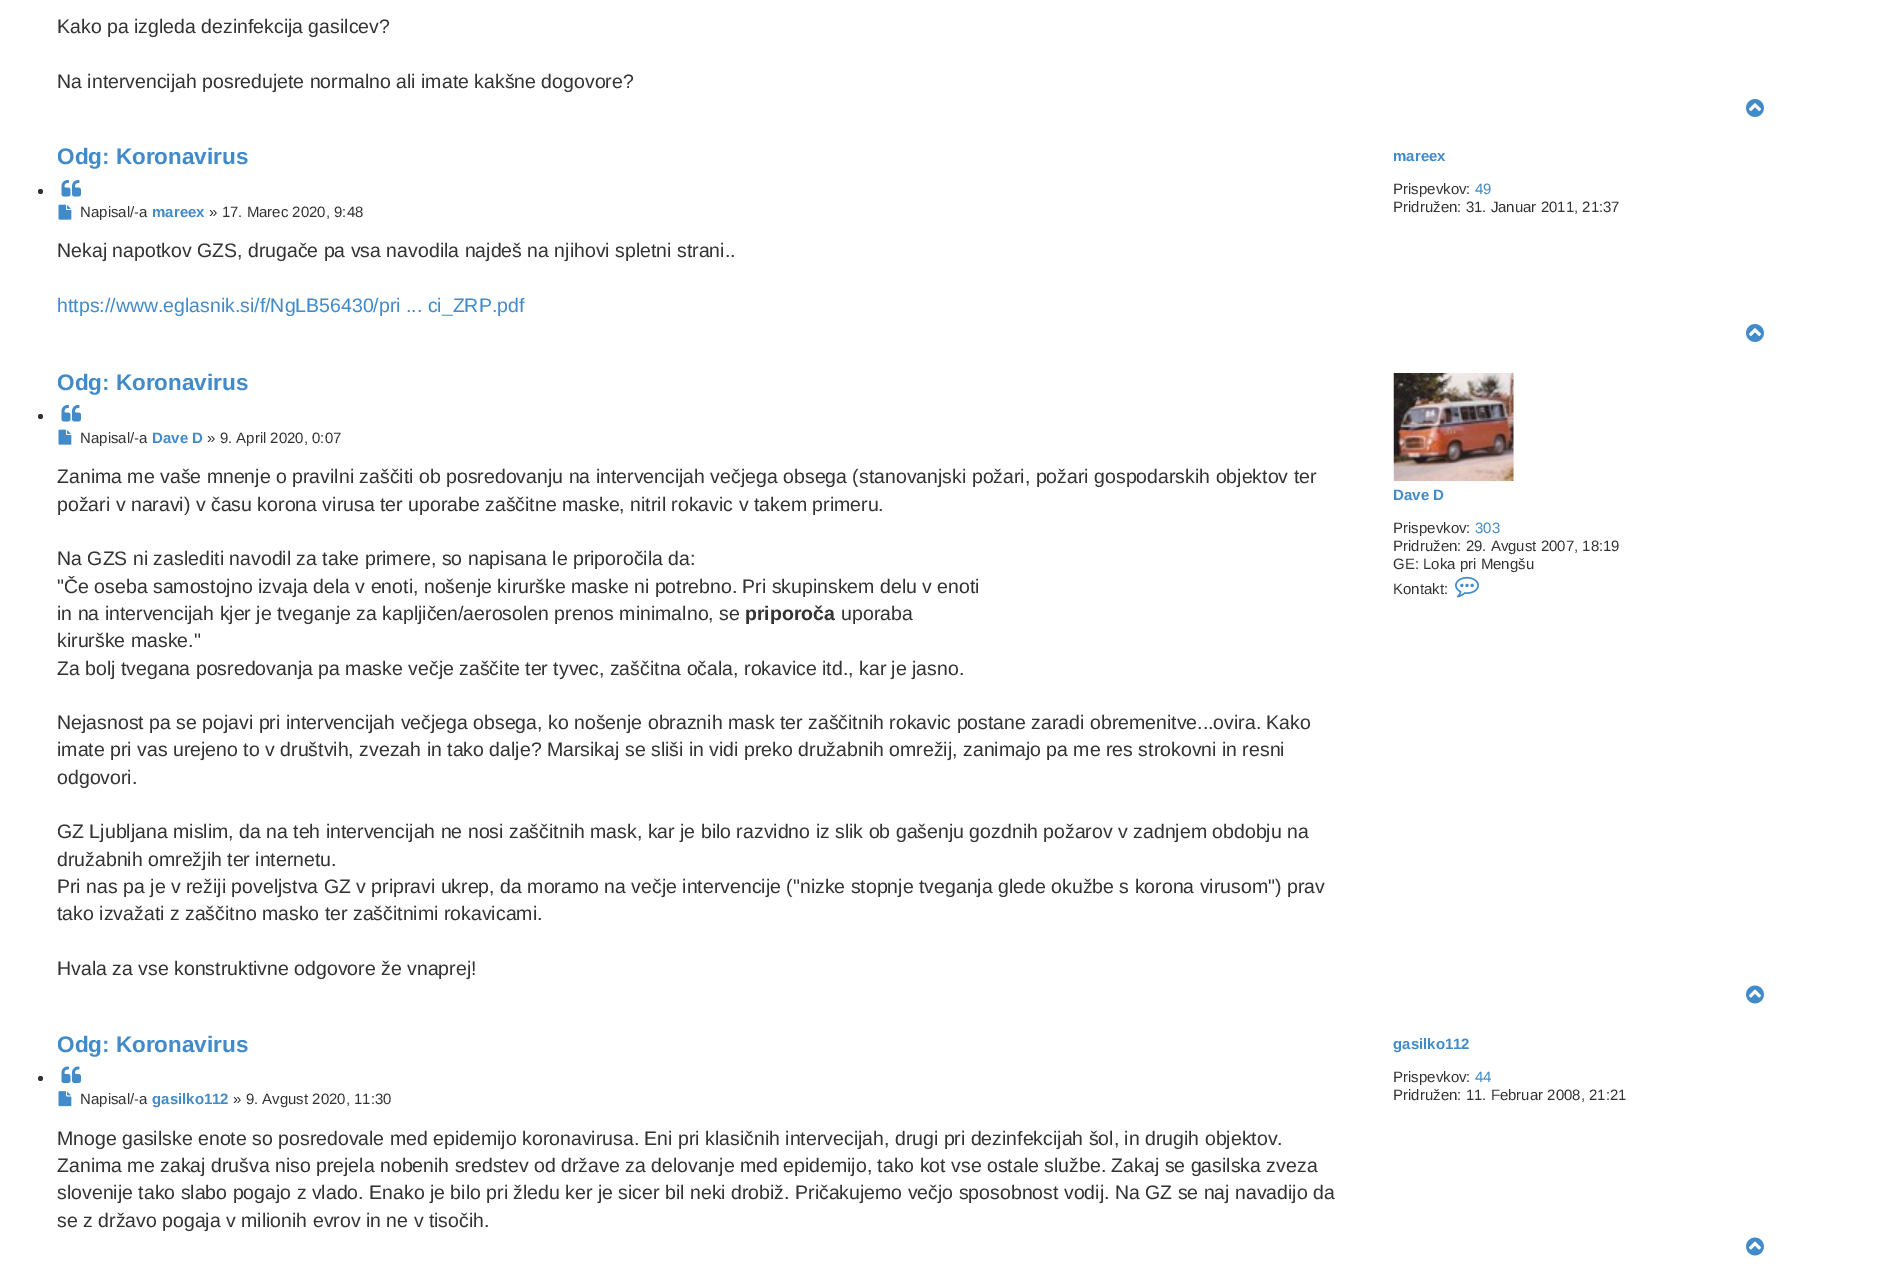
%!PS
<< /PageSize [1889 1273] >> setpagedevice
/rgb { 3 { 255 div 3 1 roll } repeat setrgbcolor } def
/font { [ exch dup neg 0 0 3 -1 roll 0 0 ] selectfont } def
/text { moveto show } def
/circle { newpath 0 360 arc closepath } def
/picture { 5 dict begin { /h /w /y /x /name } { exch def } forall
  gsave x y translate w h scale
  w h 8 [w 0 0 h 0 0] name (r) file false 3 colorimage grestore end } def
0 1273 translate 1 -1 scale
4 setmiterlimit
255 255 255 rgb
0 0 1889 1273 rectfill
(img_01.rgb) 1746 99 18 18 picture
51 51 51 rgb
40.5 191.5 2.5 circle fill
(img_02.rgb) 61 180 20 17 picture
(img_03.rgb) 58 204 14 16 picture
(img_01.rgb) 1746 324 18 18 picture
40.5 416.5 2.5 circle fill
(img_02.rgb) 61 405 20 17 picture
(img_03.rgb) 58 429 14 16 picture
(img_04.rgb) 1393 373 121 108 picture
(img_05.rgb) 1455 576 24 22 picture
(img_06.rgb) 1746 985 18 19 picture
40.5 1078.5 2.5 circle fill
(img_07.rgb) 61 1066 20 17 picture
(img_08.rgb) 58 1091 14 16 picture
(img_06.rgb) 1746 1237 18 19 picture
/LiberationSans-Regular 19.5 font
(Kako pa izgleda dezinfekcija gasilcev?) 57 33 text
(Na intervencijah posredujete normalno ali imate kakšne dogovore?) 57 88 text
/LiberationSans-Bold 22.5 font
66 139 202 rgb
(Odg: Koronavirus) 57 164 text
/LiberationSans-Regular 15 font
51 51 51 rgb
(Napisal/-a) 80 217 text
/LiberationSans-Bold 15 font
66 139 202 rgb
(mareex) 152 217 text
/LiberationSans-Regular 15 font
51 51 51 rgb
(» 17. Marec 2020, 9:48) 209 217 text
/LiberationSans-Regular 19.5 font
(Nekaj napotkov GZS, drugače pa vsa navodila najdeš na njihovi spletni strani..) 57 257 text
66 139 202 rgb
(https://www.eglasnik.si/f/NgLB56430/pri ... ci_ZRP.pdf) 57 312 text
/LiberationSans-Bold 15 font
(mareex) 1393 161 text
/LiberationSans-Regular 15 font
51 51 51 rgb
(Prispevkov:) 1393 194 text
66 139 202 rgb
(49) 1475 194 text
51 51 51 rgb
(Pridružen: 31. Januar 2011, 21:37) 1393 212 text
/LiberationSans-Bold 22.5 font
66 139 202 rgb
(Odg: Koronavirus) 57 390 text
/LiberationSans-Regular 15 font
51 51 51 rgb
(Napisal/-a) 80 443 text
/LiberationSans-Bold 15 font
66 139 202 rgb
(Dave D) 152 443 text
/LiberationSans-Regular 15 font
51 51 51 rgb
(» 9. April 2020, 0:07) 207 443 text
/LiberationSans-Regular 19.5 font
(Zanima me vaše mnenje o pravilni zaščiti ob posredovanju na intervencijah večjega obsega \(stanovanjski požari, požari gospodarskih objektov ter) 57 483 text
(požari v naravi\) v času korona virusa ter uporabe zaščitne maske, nitril rokavic v takem primeru.) 57 511 text
(Na GZS ni zaslediti navodil za take primere, so napisana le priporočila da:) 57 565 text
("Če oseba samostojno izvaja dela v enoti, nošenje kirurške maske ni potrebno. Pri skupinskem delu v enoti) 57 593 text
(in na intervencijah kjer je tveganje za kapljičen/aerosolen prenos minimalno, se) 57 620 text
/LiberationSans-Bold 19.5 font
(priporoča) 745 620 text
/LiberationSans-Regular 19.5 font
(uporaba) 841 620 text
(kirurške maske.") 57 647 text
(Za bolj tvegana posredovanja pa maske večje zaščite ter tyvec, zaščitna očala, rokavice itd., kar je jasno.) 57 675 text
(Nejasnost pa se pojavi pri intervencijah večjega obsega, ko nošenje obraznih mask ter zaščitnih rokavic postane zaradi obremenitve...ovira. Kako) 57 729 text
(imate pri vas urejeno to v društvih, zvezah in tako dalje? Marsikaj se sliši in vidi preko družabnih omrežij, zanimajo pa me res strokovni in resni) 57 756 text
(odgovori.) 57 784 text
(GZ Ljubljana mislim, da na teh intervencijah ne nosi zaščitnih mask, kar je bilo razvidno iz slik ob gašenju gozdnih požarov v zadnjem obdobju na) 57 838 text
(družabnih omrežjih ter internetu.) 57 866 text
(Pri nas pa je v režiji poveljstva GZ v pripravi ukrep, da moramo na večje intervencije \("nizke stopnje tveganja glede okužbe s korona virusom"\) prav) 57 893 text
(tako izvažati z zaščitno masko ter zaščitnimi rokavicami.) 57 920 text
(Hvala za vse konstruktivne odgovore že vnaprej!) 57 975 text
/LiberationSans-Bold 15 font
66 139 202 rgb
(Dave D) 1393 500 text
/LiberationSans-Regular 15 font
51 51 51 rgb
(Prispevkov:) 1393 533 text
66 139 202 rgb
(303) 1475 533 text
51 51 51 rgb
(Pridružen: 29. Avgust 2007, 18:19) 1393 551 text
(GE: Loka pri Mengšu) 1393 569 text
(Kontakt:) 1393 594 text
/LiberationSans-Bold 22.5 font
66 139 202 rgb
(Odg: Koronavirus) 57 1052 text
/LiberationSans-Regular 15 font
51 51 51 rgb
(Napisal/-a) 80 1104 text
/LiberationSans-Bold 15 font
66 139 202 rgb
(gasilko112) 152 1104 text
/LiberationSans-Regular 15 font
51 51 51 rgb
(» 9. Avgust 2020, 11:30) 233 1104 text
/LiberationSans-Regular 19.5 font
(Mnoge gasilske enote so posredovale med epidemijo koronavirusa. Eni pri klasičnih intervecijah, drugi pri dezinfekcijah šol, in drugih objektov.) 57 1145 text
(Zanima me zakaj drušva niso prejela nobenih sredstev od države za delovanje med epidemijo, tako kot vse ostale službe. Zakaj se gasilska zveza) 57 1172 text
(slovenije tako slabo pogajo z vlado. Enako je bilo pri žledu ker je sicer bil neki drobiž. Pričakujemo večjo sposobnost vodij. Na GZ se naj navadijo da) 57 1199 text
(se z državo pogaja v milionih evrov in ne v tisočih.) 57 1227 text
/LiberationSans-Bold 15 font
66 139 202 rgb
(gasilko112) 1393 1049 text
/LiberationSans-Regular 15 font
51 51 51 rgb
(Prispevkov:) 1393 1082 text
66 139 202 rgb
(44) 1475 1082 text
51 51 51 rgb
(Pridružen: 11. Februar 2008, 21:21) 1393 1100 text
showpage
